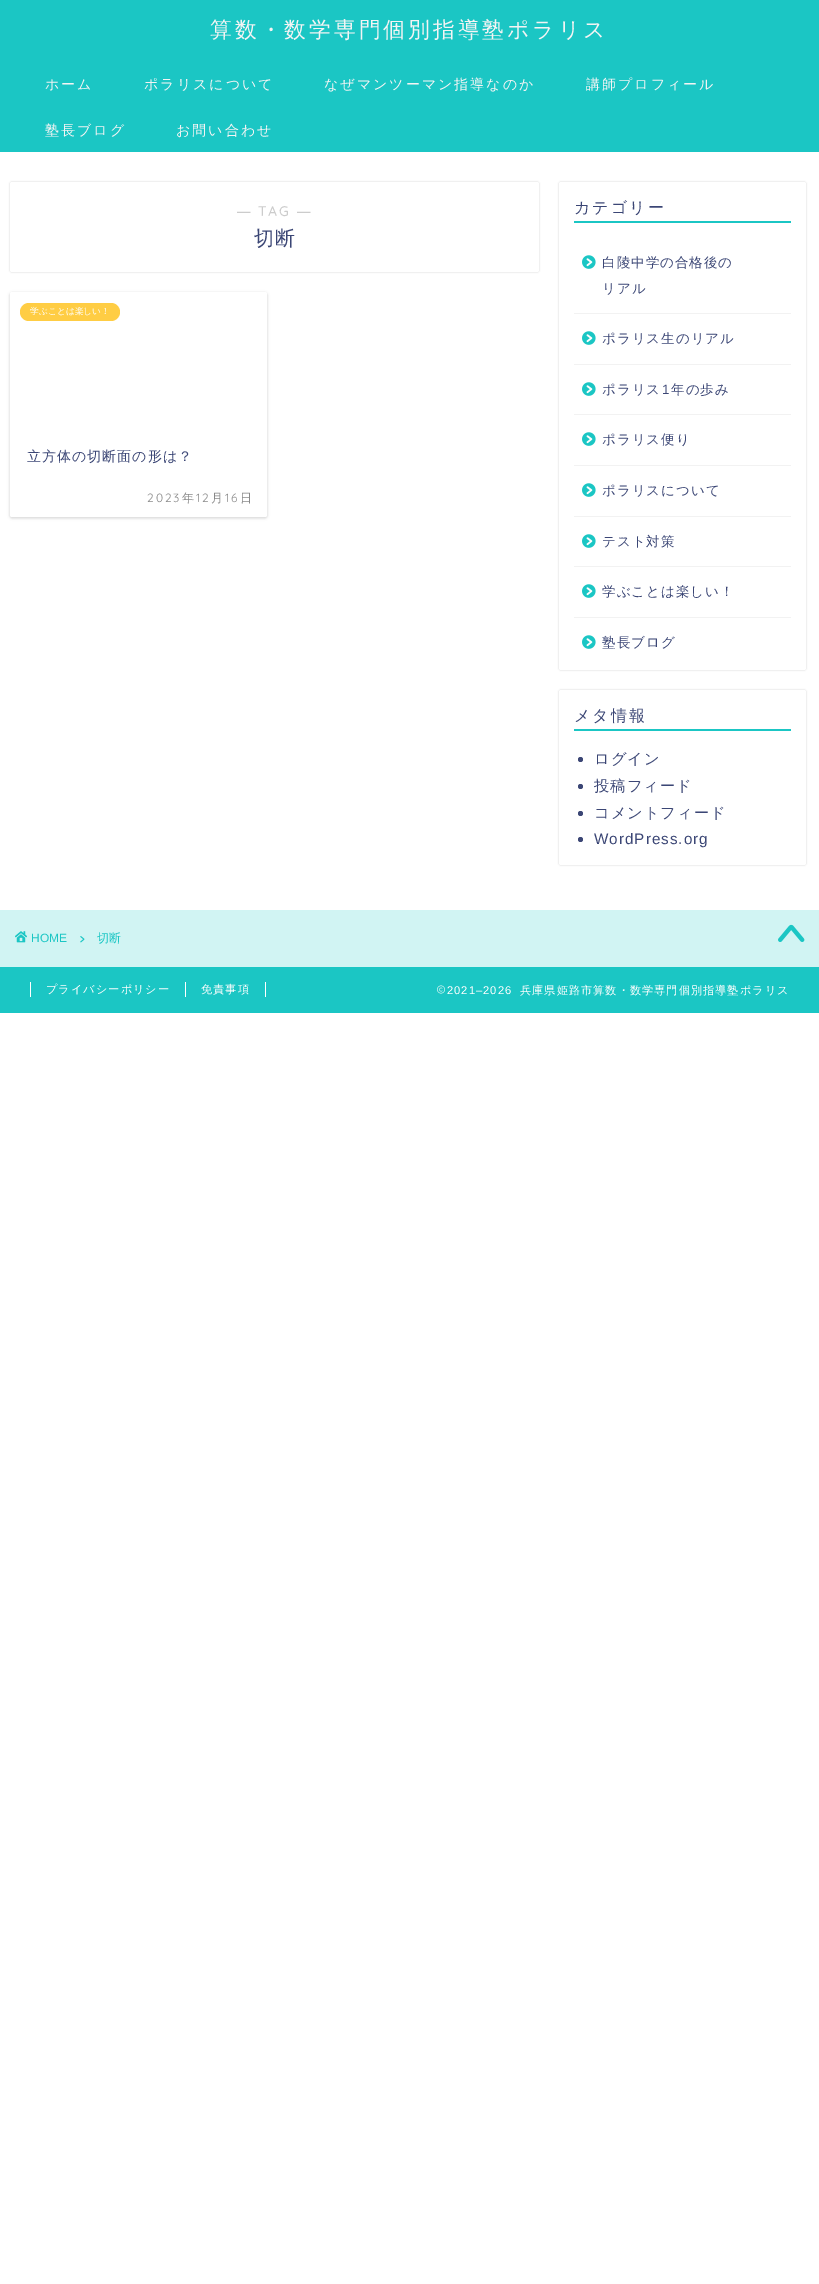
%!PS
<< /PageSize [819 2284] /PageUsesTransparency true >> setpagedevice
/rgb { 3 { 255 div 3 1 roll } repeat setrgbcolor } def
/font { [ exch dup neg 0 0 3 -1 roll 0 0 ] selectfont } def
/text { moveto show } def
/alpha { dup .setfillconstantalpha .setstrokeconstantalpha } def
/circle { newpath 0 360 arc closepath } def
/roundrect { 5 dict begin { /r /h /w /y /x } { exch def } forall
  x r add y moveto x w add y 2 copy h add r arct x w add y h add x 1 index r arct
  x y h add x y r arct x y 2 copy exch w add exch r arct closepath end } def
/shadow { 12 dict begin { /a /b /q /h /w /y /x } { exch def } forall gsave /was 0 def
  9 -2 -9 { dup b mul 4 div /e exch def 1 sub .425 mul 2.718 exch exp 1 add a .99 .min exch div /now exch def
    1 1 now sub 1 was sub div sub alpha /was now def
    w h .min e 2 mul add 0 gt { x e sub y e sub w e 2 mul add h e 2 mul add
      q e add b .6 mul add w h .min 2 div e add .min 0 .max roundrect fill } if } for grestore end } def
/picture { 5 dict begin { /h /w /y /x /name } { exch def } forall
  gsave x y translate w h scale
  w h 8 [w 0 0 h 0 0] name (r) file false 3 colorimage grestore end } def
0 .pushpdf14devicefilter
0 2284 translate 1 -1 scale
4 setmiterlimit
255 255 255 rgb
0 0 819 2284 rectfill
27 198 196 rgb
0 0 819 152 rectfill
0 0 0 rgb
10 182 529 90 2 1 0.18 shadow
255 255 255 rgb
10 182 529 90 2 roundrect fill
0 0 0 rgb
10 293 257 225 2 1.5 0.18 shadow
255 255 255 rgb
10 292 257 225 2 roundrect fill
255 205 68 rgb
20 303 100 18 9 roundrect fill
0 0 0 rgb
559 182 247 488 2 1 0.18 shadow
255 255 255 rgb
559 182 247 488 2 roundrect fill
27 198 196 rgb
574 221 217 2 rectfill
242 242 242 rgb
574 313 217 1 rectfill
(img_01.rgb) 582 255 14 14 picture
574 364 217 1 rectfill
(img_01.rgb) 582 331 14 14 picture
574 414 217 1 rectfill
(img_01.rgb) 582 382 14 14 picture
574 465 217 1 rectfill
(img_01.rgb) 582 432 14 14 picture
574 516 217 1 rectfill
(img_01.rgb) 582 483 14 14 picture
574 566 217 1 rectfill
(img_01.rgb) 582 534 14 14 picture
574 617 217 1 rectfill
(img_01.rgb) 582 584 14 14 picture
(img_01.rgb) 582 635 14 14 picture
0 0 0 rgb
559 690 247 175 2 1 0.18 shadow
255 255 255 rgb
559 690 247 175 2 roundrect fill
27 198 196 rgb
574 729 217 2 rectfill
59 70 117 rgb
580.5 759.5 2.5 circle fill
580.5 786.5 2.5 circle fill
580.5 813.5 2.5 circle fill
580.5 839.5 2.5 circle fill
209 244 243 rgb
0 910 819 57 rectfill
(img_02.rgb) 15 931 12 12 picture
(img_03.rgb) 80 936 5 7 picture
(img_04.rgb) 778 924 27 18 picture
27 198 196 rgb
0 967 819 46 rectfill
255 255 255 rgb
185 982 1 15 rectfill
30 982 1 15 rectfill
265 982 1 15 rectfill
(img_05.rgb) 437 985 8 9 picture
/WenQuanYiZenHei-Medium 21.75 font
244 244 244 rgb
210 37 moveto 3 0 (算数・数学専門個別指導塾ポラリス) ashow
/WenQuanYiZenHei-Medium 14 font
45 89 moveto 2 0 (ホーム) ashow
144 89 moveto 2 0 (ポラリスについて) ashow
324 89 moveto 2 0 (なぜマンツーマン指導なのか) ashow
586 89 moveto 2 0 (講師プロフィール) ashow
45 135 moveto 2 0 (塾長ブログ) ashow
176 135 moveto 2 0 (お問い合わせ) ashow
/LiberationSans-Bold 13.5 font
204 204 204 rgb
237 216 moveto 2 0 (―) ashow
/Quicksand-Bold 13.5 font
258 216 moveto 2 0 (TAG) ashow
/LiberationSans-Bold 13.5 font
297 216 moveto 2 0 (―) ashow
/WenQuanYiZenHei-Medium 20 font
59 70 117 rgb
254 245 moveto 1 0 (切断) ashow
/WenQuanYiZenHei-Medium 8.75 font
255 255 255 rgb
(学ぶことは楽しい！) 30 314 text
/WenQuanYiZenHei-Medium 14 font
59 70 117 rgb
27 461 moveto 1 0 (立方体の切断面の形は？) ashow
/Quicksand-Light 12 font
136 136 136 rgb
147 502 moveto 2 0 (2023) ashow
/WenQuanYiZenHei-Medium 12 font
182 502 moveto 2 0 (年) ashow
/Quicksand-Light 12 font
196 502 moveto 2 0 (12) ashow
/WenQuanYiZenHei-Medium 12 font
211 502 moveto 2 0 (月) ashow
/Quicksand-Light 12 font
225 502 moveto 2 0 (16) ashow
/WenQuanYiZenHei-Medium 12 font
240 502 moveto 2 0 (日) ashow
/WenQuanYiZenHei-Medium 16 font
59 70 117 rgb
574 213 moveto 2 0 (カテゴリー) ashow
/WenQuanYiZenHei-Medium 13.5 font
602 267 moveto 1 0 (白陵中学の合格後の) ashow
602 293 moveto 1 0 (リアル) ashow
602 343 moveto 1 0 (ポラリス生のリアル) ashow
602 394 moveto 1 0 (ポラリス) ashow
/LiberationSans-Regular 13.5 font
662 394 moveto 1 0 (1) ashow
/WenQuanYiZenHei-Medium 13.5 font
671 394 moveto 1 0 (年の歩み) ashow
602 444 moveto 1 0 (ポラリス便り) ashow
602 495 moveto 1 0 (ポラリスについて) ashow
602 546 moveto 1 0 (テスト対策) ashow
602 596 moveto 1 0 (学ぶことは楽しい！) ashow
602 647 moveto 1 0 (塾長ブログ) ashow
/WenQuanYiZenHei-Medium 16 font
574 721 moveto 2 0 (メタ情報) ashow
/WenQuanYiZenHei-Medium 15.25 font
594 764 moveto 1 0 (ログイン) ashow
594 791 moveto 1 0 (投稿フィード) ashow
594 818 moveto 1 0 (コメントフィード) ashow
/LiberationSans-Regular 15.25 font
594 844 moveto 1 0 (WordPress.org) ashow
/LiberationSans-Regular 12 font
27 198 196 rgb
(HOME) 31 942 text
/WenQuanYiZenHei-Medium 12 font
(切断) 97 942 text
/WenQuanYiZenHei-Medium 11.2 font
255 255 255 rgb
46 993 moveto 1 0 (プライバシーポリシー) ashow
201 993 moveto 1 0 (免責事項) ashow
/LiberationSans-Regular 11.2 font
447 994 moveto 1 0 (2021–2026) ashow
/WenQuanYiZenHei-Medium 11.2 font
520 994 moveto 1 0 (兵庫県姫路市算数・数学専門個別指導塾ポラリス) ashow
.poppdf14devicefilter showpage
